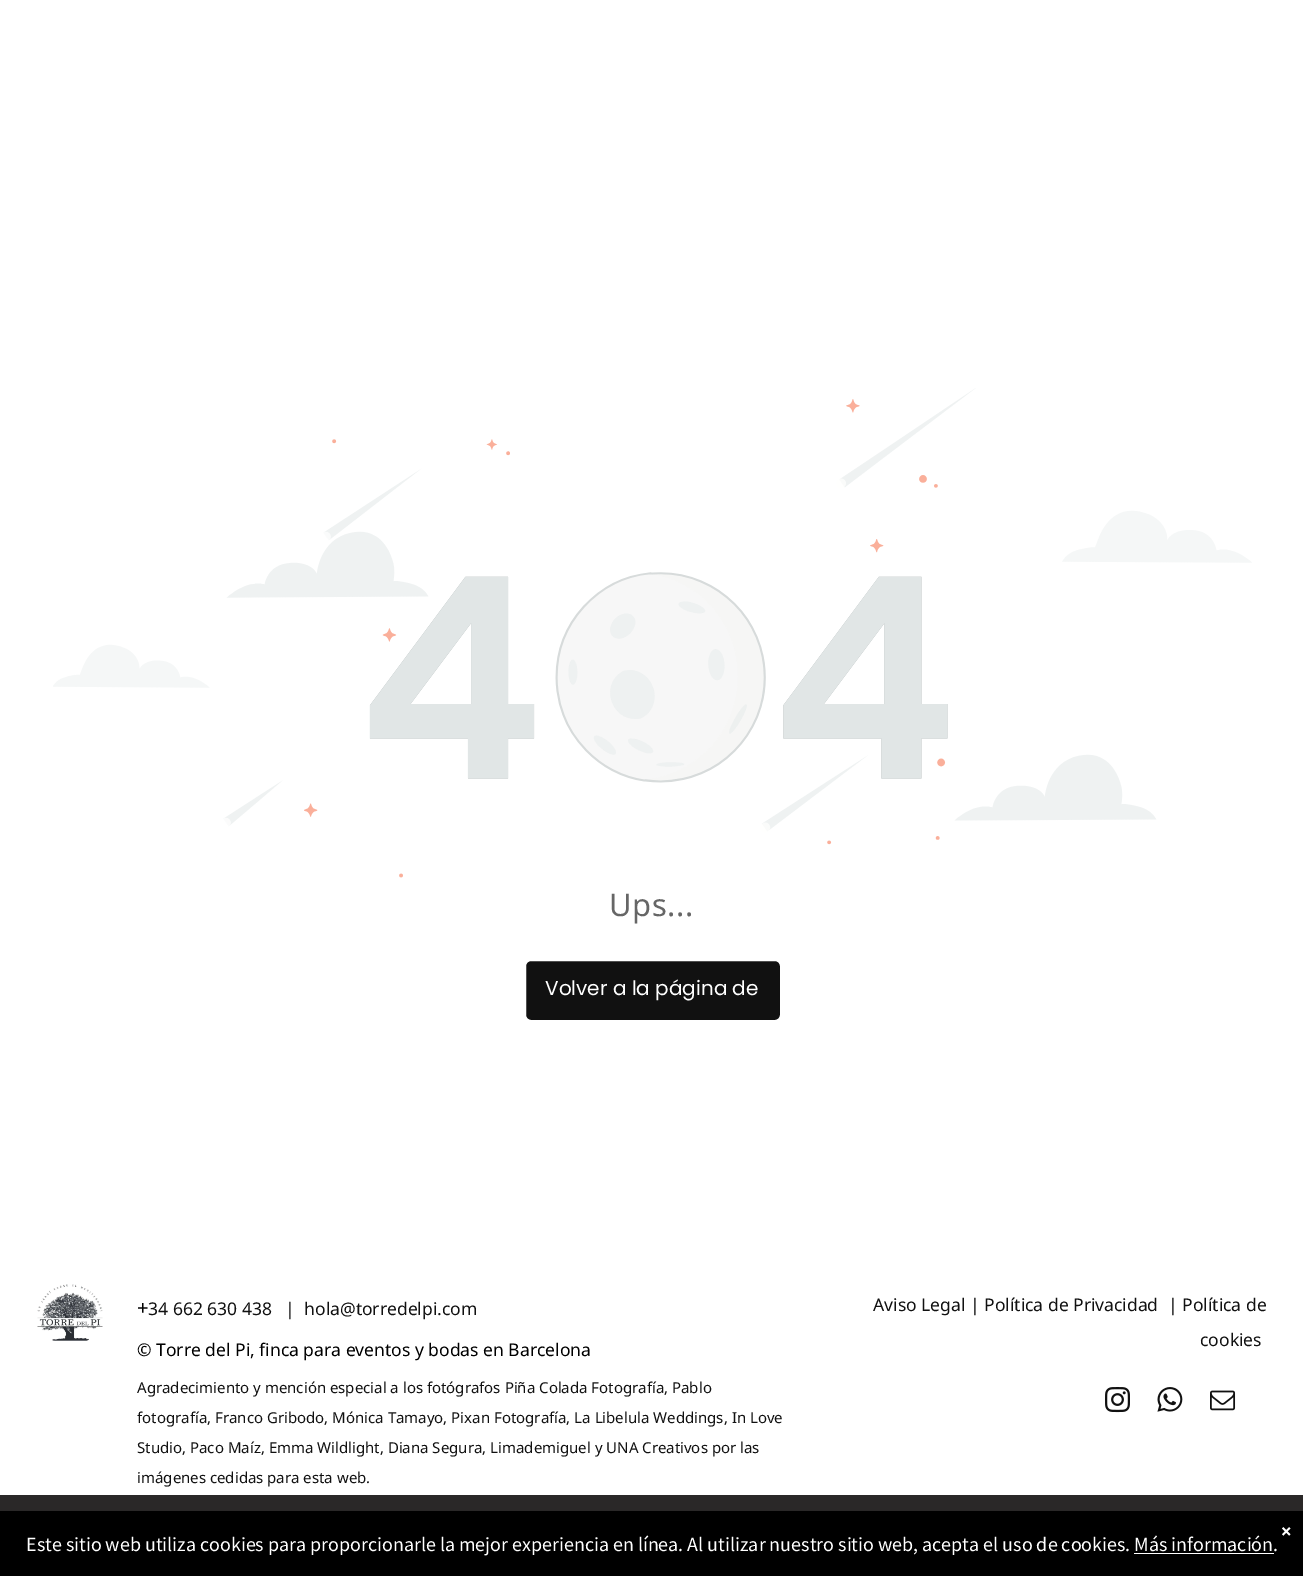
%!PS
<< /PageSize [1303 1576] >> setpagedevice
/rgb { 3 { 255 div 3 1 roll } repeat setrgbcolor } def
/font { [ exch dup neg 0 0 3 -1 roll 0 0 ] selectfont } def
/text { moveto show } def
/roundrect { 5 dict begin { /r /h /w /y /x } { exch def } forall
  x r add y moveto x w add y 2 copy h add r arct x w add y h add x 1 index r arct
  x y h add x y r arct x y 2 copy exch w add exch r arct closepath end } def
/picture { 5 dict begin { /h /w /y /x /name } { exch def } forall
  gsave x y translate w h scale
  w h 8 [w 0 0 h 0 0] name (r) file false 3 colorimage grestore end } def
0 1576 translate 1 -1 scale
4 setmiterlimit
255 255 255 rgb
0 0 1303 1576 rectfill
(img_01.rgb) 53 388 1199 490 picture
17 17 17 rgb
524.5 959.5 257 62 6.5 roundrect gsave fill grestore
255 255 255 rgb
3 setlinewidth
stroke
42 40 40 rgb
0 1495 1303 16 rectfill
(img_02.rgb) 37 1284 66 57 picture
(img_03.rgb) 1105 1387 25 26 picture
(img_04.rgb) 1157 1387 26 25 picture
(img_05.rgb) 1210 1390 26 21 picture
0 0 0 rgb
0 1511 1303 65 rectfill
255 255 255 rgb
1134 1553 140 1 rectfill
/NotoSans-Regular 31 font
102 102 102 rgb
609 916 moveto 0.5 0 (Ups...) ashow
/Poppins-Regular 20 font
255 255 255 rgb
(Volver a la página de) 545 995 text
/NotoSans-Regular 20 font
0 0 0 rgb
(+) 137 1315 text
/NotoSans-Regular 17.5 font
17 17 17 rgb
(34 662 630 438   |  hola@torredelpi.com) 148 1315 text
0 0 0 rgb
(© Torre del Pi, finca para eventos y bodas en Barcelona) 137 1356 text
/NotoSans-Regular 15 font
17 17 17 rgb
(Agradecimiento y mención especial a los fotógrafos Piña Colada Fotografía, Pablo) 137 1393 text
(fotografía, Franco Gribodo, Mónica Tamayo, Pixan Fotografía, La Libelula Weddings, In Love) 137 1423 text
(Studio, Paco Maíz, Emma Wildlight, Diana Segura, Limademiguel y UNA Creativos por las) 137 1453 text
(imágenes cedidas para esta web.) 137 1483 text
/NotoSans-Regular 17.5 font
(Aviso Legal) 873 1311 text
0 0 0 rgb
(|) 970 1311 text
17 17 17 rgb
(Política de Privacidad) 984 1311 text
0 0 0 rgb
(|) 1168 1311 text
17 17 17 rgb
(Política de) 1182 1311 text
(cookies) 1200 1346 text
/SourceSansPro-Bold 20 font
255 255 255 rgb
(×) 1281 1538 text
/SourceSansPro-Regular 20 font
(Este sitio web utiliza cookies para proporcionarle la mejor experiencia en línea. Al utilizar nuestro sitio web, acepta el uso de cookies. Más información.) 26 1551 text
showpage
